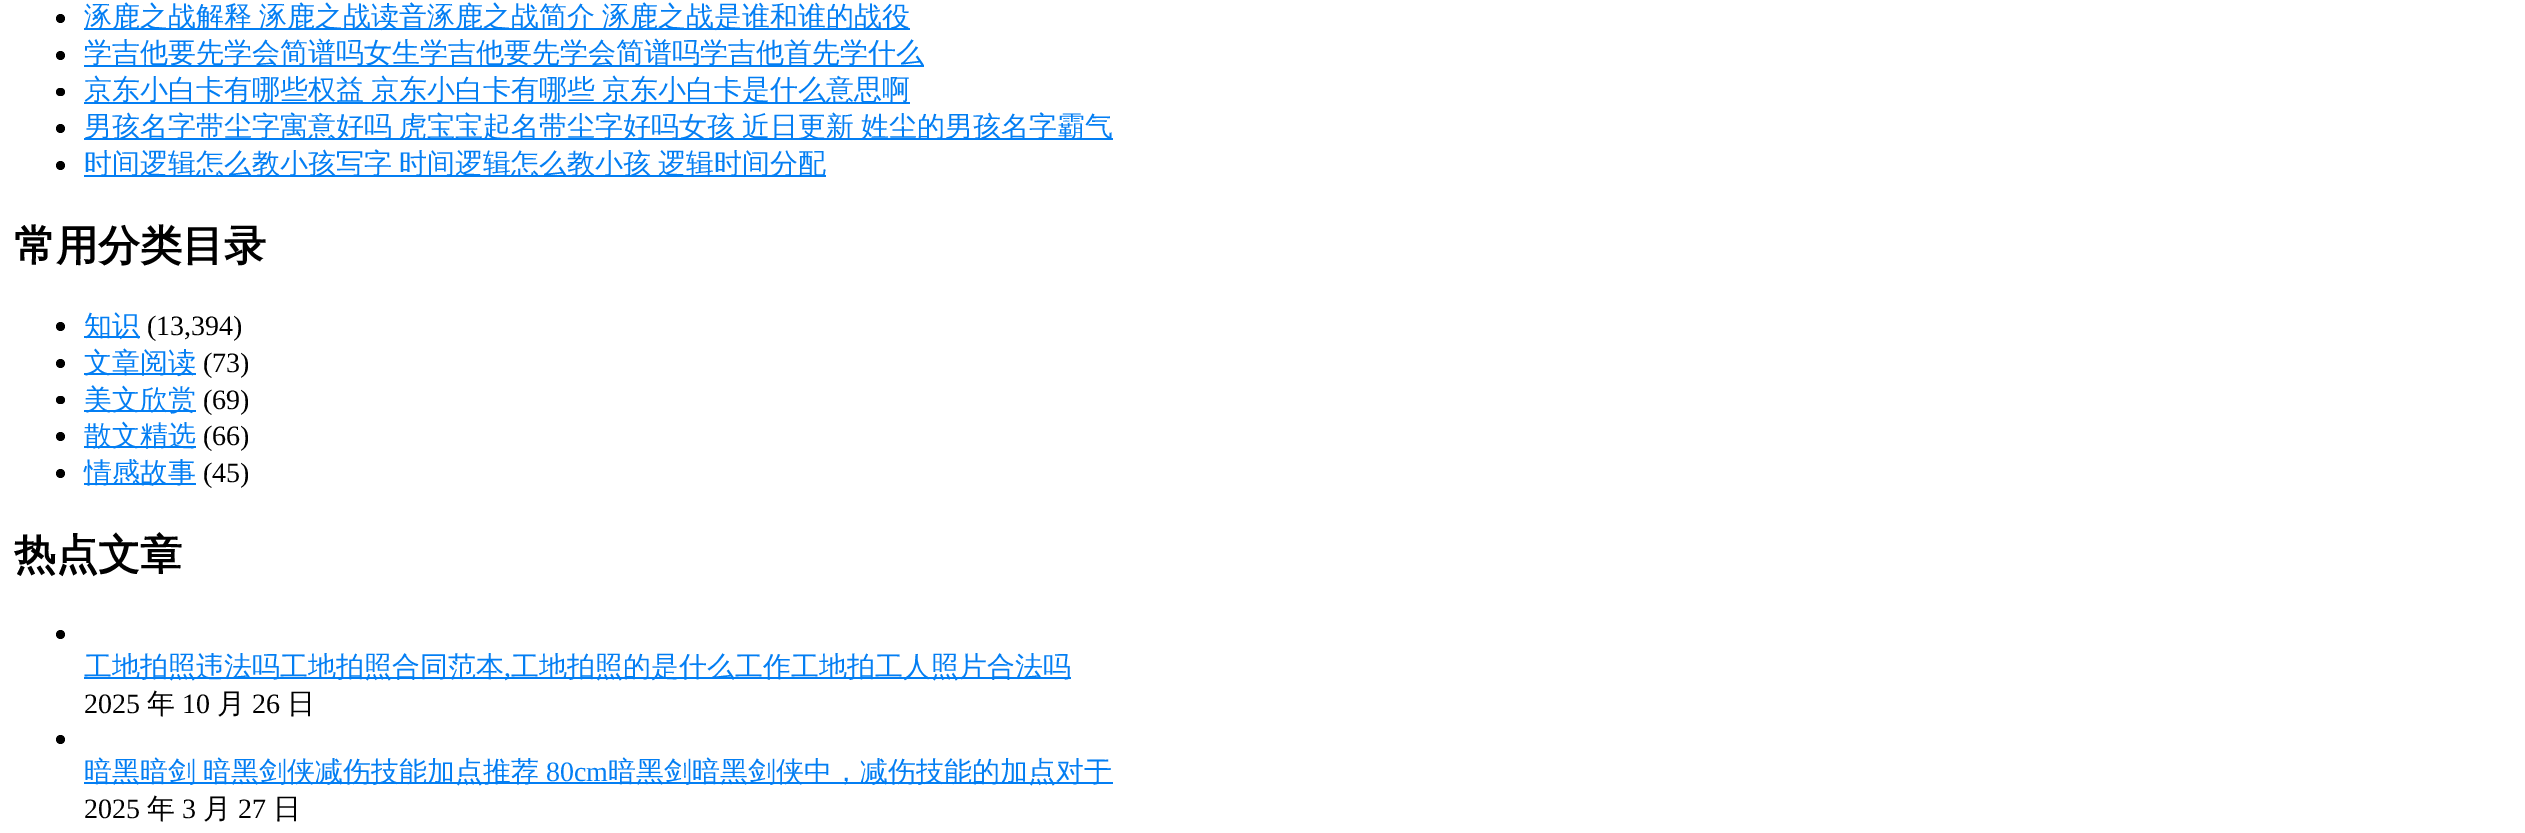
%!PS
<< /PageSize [2525 833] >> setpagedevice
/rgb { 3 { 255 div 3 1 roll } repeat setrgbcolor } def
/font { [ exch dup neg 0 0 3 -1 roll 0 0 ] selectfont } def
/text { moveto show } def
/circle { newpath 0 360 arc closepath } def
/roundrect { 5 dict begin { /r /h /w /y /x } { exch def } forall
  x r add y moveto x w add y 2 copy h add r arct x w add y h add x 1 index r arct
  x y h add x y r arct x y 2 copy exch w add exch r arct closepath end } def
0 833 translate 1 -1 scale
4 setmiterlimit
255 255 255 rgb
0 0 2525 833 rectfill
0 0 0 rgb
60.5 18.5 4.5 circle fill
3 126 243 rgb
84 28 826 2 rectfill
0 0 0 rgb
60.5 55.5 4.5 circle fill
3 126 243 rgb
84 65 840 2 rectfill
0 0 0 rgb
56 88 9 8 4 roundrect fill
3 126 243 rgb
84 102 826 2 rectfill
0 0 0 rgb
60.5 128.5 4.5 circle fill
3 126 243 rgb
84 138 1029 2 rectfill
0 0 0 rgb
60.5 165.5 4.5 circle fill
3 126 243 rgb
84 175 742 2 rectfill
0 0 0 rgb
60.5 326.5 4.5 circle fill
3 126 243 rgb
84 336 56 2 rectfill
0 0 0 rgb
60.5 363.5 4.5 circle fill
3 126 243 rgb
84 373 112 2 rectfill
0 0 0 rgb
56 396 9 8 4 roundrect fill
3 126 243 rgb
84 410 112 2 rectfill
0 0 0 rgb
60.5 436.5 4.5 circle fill
3 126 243 rgb
84 446 112 2 rectfill
0 0 0 rgb
60.5 473.5 4.5 circle fill
3 126 243 rgb
84 483 112 2 rectfill
0 0 0 rgb
60.5 634.5 4.5 circle fill
3 126 243 rgb
84 677 987 2 rectfill
0 0 0 rgb
60.5 739.5 4.5 circle fill
3 126 243 rgb
84 782 1029 2 rectfill
/WenQuanYiZenHei-Medium 28 font
84 26 moveto -1.5 0 32 (涿鹿之战解释 涿鹿之战读音涿鹿之战简介 涿鹿之战是谁和谁的战役) widthshow
(学吉他要先学会简谱吗女生学吉他要先学会简谱吗学吉他首先学什么) 84 62 text
84 99 moveto -1.5 0 32 (京东小白卡有哪些权益 京东小白卡有哪些 京东小白卡是什么意思啊) widthshow
84 136 moveto -1.5 0 32 (男孩名字带尘字寓意好吗 虎宝宝起名带尘字好吗女孩 近日更新 姓尘的男孩名字霸气) widthshow
84 173 moveto -1.5 0 32 (时间逻辑怎么教小孩写字 时间逻辑怎么教小孩 逻辑时间分配) widthshow
/WenQuanYiZenHei-Bold 42 font
0 0 0 rgb
(常用分类目录) 14 260 text
/WenQuanYiZenHei-Medium 28 font
3 126 243 rgb
(知识) 84 335 text
/LiberationSerif-Regular 28 font
0 0 0 rgb
(\(13,394\)) 147 335 text
/WenQuanYiZenHei-Medium 28 font
3 126 243 rgb
(文章阅读) 84 372 text
/LiberationSerif-Regular 28 font
0 0 0 rgb
(\(73\)) 203 372 text
/WenQuanYiZenHei-Medium 28 font
3 126 243 rgb
(美文欣赏) 84 409 text
/LiberationSerif-Regular 28 font
0 0 0 rgb
(\(69\)) 203 409 text
/WenQuanYiZenHei-Medium 28 font
3 126 243 rgb
(散文精选) 84 445 text
/LiberationSerif-Regular 28 font
0 0 0 rgb
(\(66\)) 203 445 text
/WenQuanYiZenHei-Medium 28 font
3 126 243 rgb
(情感故事) 84 482 text
/LiberationSerif-Regular 28 font
0 0 0 rgb
(\(45\)) 203 482 text
/WenQuanYiZenHei-Bold 42 font
(热点文章) 14 569 text
/WenQuanYiZenHei-Medium 28 font
3 126 243 rgb
(工地拍照违法吗工地拍照合同范本) 84 676 text
/LiberationSerif-Regular 28 font
(,) 504 676 text
/WenQuanYiZenHei-Medium 28 font
(工地拍照的是什么工作工地拍工人照片合法吗) 511 676 text
/LiberationSerif-Regular 28 font
0 0 0 rgb
(2025) 84 713 text
/WenQuanYiZenHei-Medium 28 font
(年) 147 713 text
/LiberationSerif-Regular 28 font
(10) 182 713 text
/WenQuanYiZenHei-Medium 28 font
(月) 217 713 text
/LiberationSerif-Regular 28 font
(26) 252 713 text
/WenQuanYiZenHei-Medium 28 font
(日) 287 713 text
3 126 243 rgb
84 781 moveto -1 0 32 (暗黑暗剑 暗黑剑侠减伤技能加点推荐) widthshow
/LiberationSerif-Regular 28 font
(80cm) 546 781 text
/WenQuanYiZenHei-Medium 28 font
(暗黑剑暗黑剑侠中，减伤技能的加点对于) 608 781 text
/LiberationSerif-Regular 28 font
0 0 0 rgb
(2025) 84 818 text
/WenQuanYiZenHei-Medium 28 font
(年) 147 818 text
/LiberationSerif-Regular 28 font
(3) 182 818 text
/WenQuanYiZenHei-Medium 28 font
(月) 203 818 text
/LiberationSerif-Regular 28 font
(27) 238 818 text
/WenQuanYiZenHei-Medium 28 font
(日) 273 818 text
showpage
